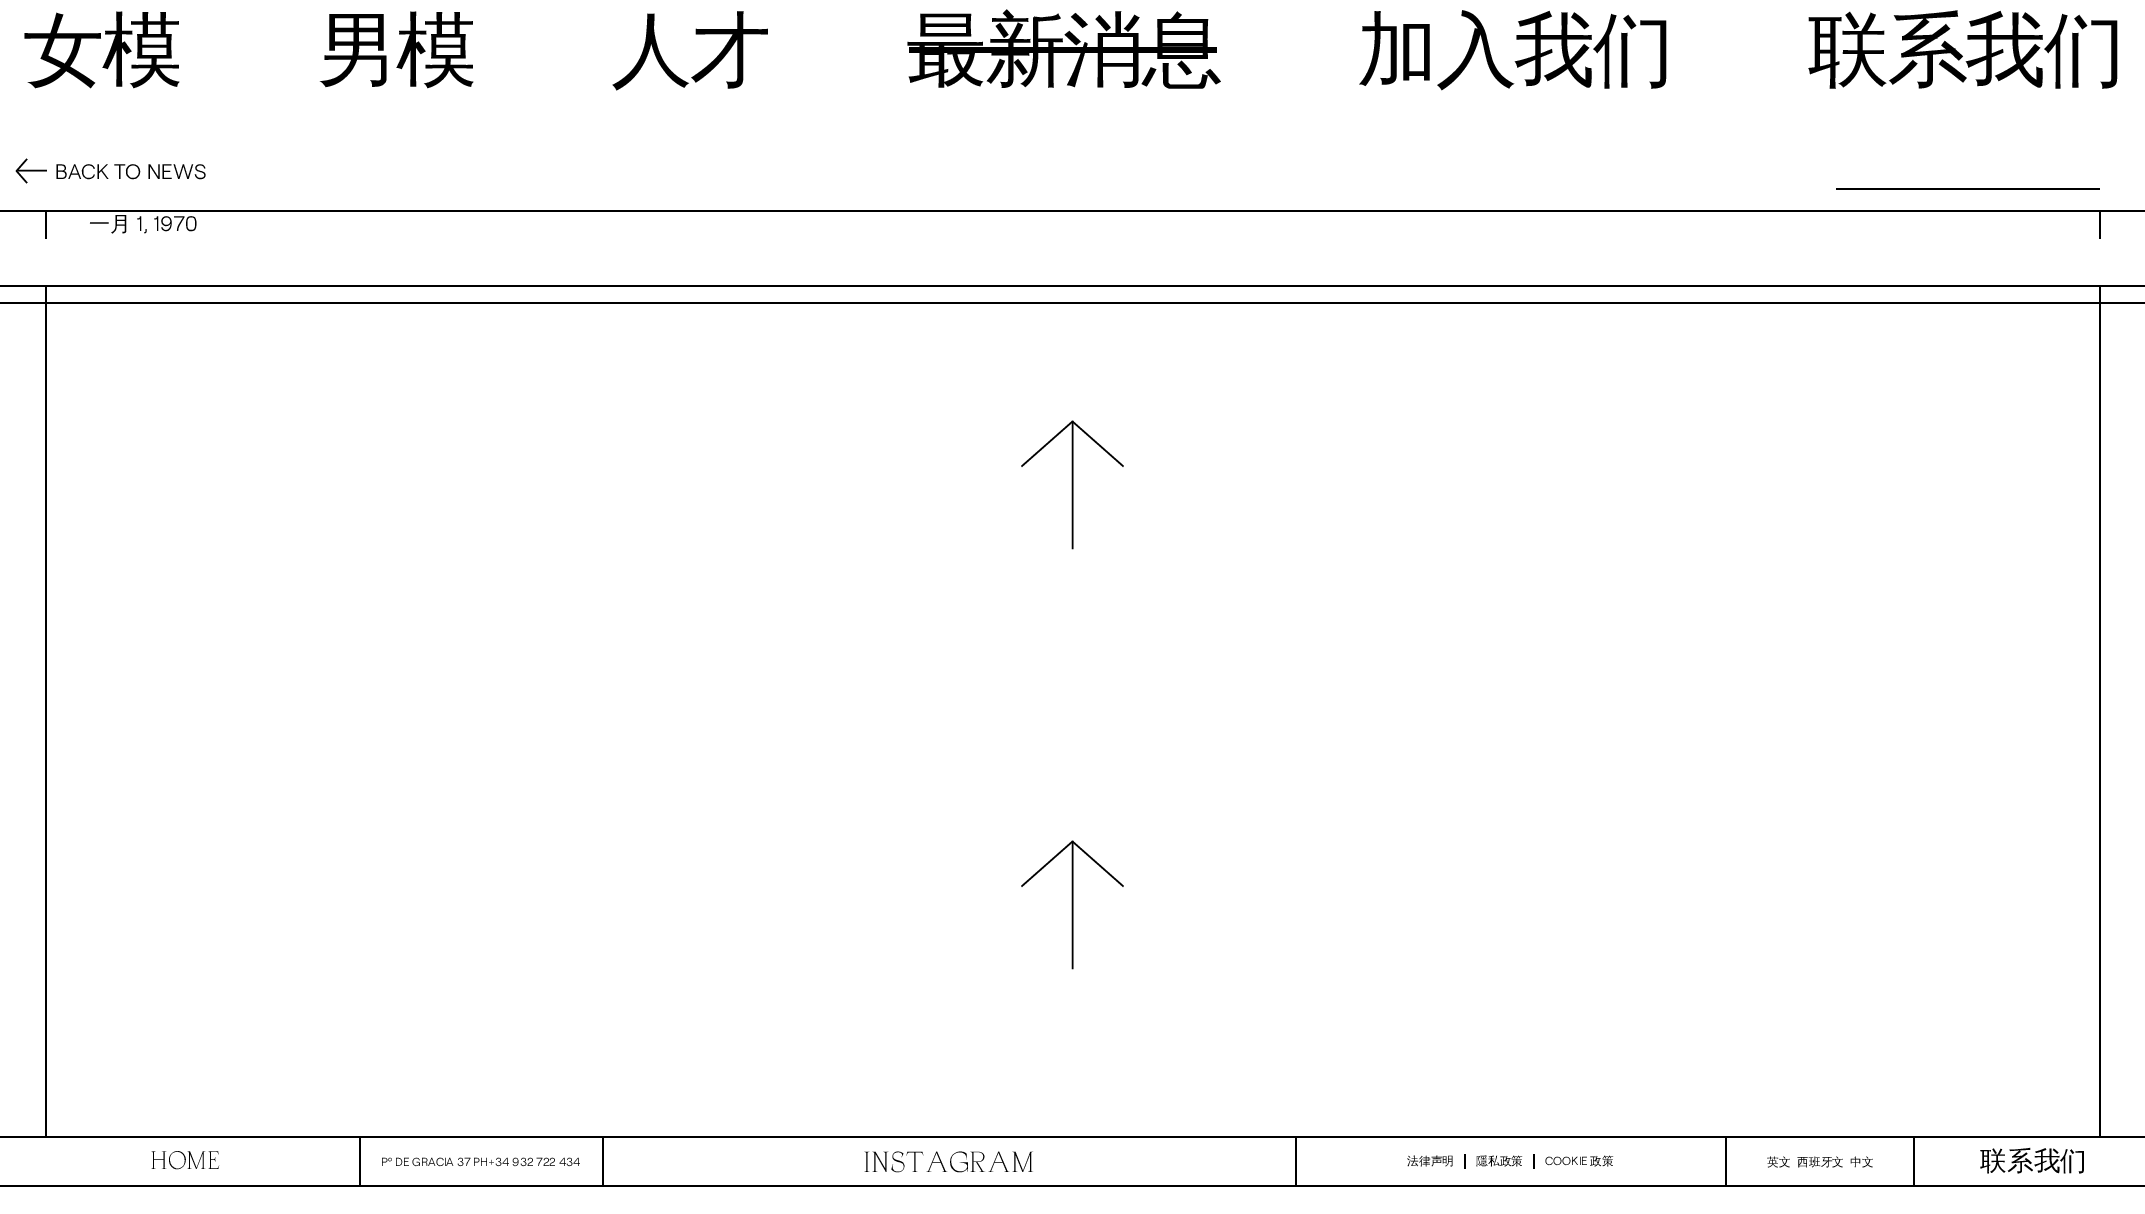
%!PS
<< /PageSize [2145 1214] >> setpagedevice
/rgb { 3 { 255 div 3 1 roll } repeat setrgbcolor } def
/font { [ exch dup neg 0 0 3 -1 roll 0 0 ] selectfont } def
/text { moveto show } def
0 1214 translate 1 -1 scale
4 setmiterlimit
255 255 255 rgb
0 0 2145 1214 rectfill
0 0 0 rgb
909 47 308 6 rectfill
2099 210 2 29 rectfill
45 210 2 29 rectfill
0 210 2145 2 rectfill
gsave
15 159 32 24 rectclip
1.5 setlinewidth
2 setlinecap
1 setlinejoin
18.5 170.5 moveto 28 0 rlineto stroke
grestore
1.5 setlinewidth
1 setlinejoin
27 159 moveto -10.5 12 rlineto 10.5 12 rlineto stroke
1836 188 264 2 rectfill
0 285 2145 2 rectfill
2099 287 2 15 rectfill
45 287 2 15 rectfill
0 302 2145 2 rectfill
2099 303 2 836 rectfill
45 303 2 836 rectfill
2 setlinecap
1072.5 421.5 moveto 0 127 rlineto stroke
0 setlinecap
1123.5 466.5 moveto -51 -45 rlineto -51 45 rlineto stroke
2 setlinecap
1072.5 841.5 moveto 0 127 rlineto stroke
0 setlinecap
1123.5 886.5 moveto -51 -45 rlineto -51 45 rlineto stroke
255 255 255 rgb
45 1138 2056 1 rectfill
0 0 0 rgb
0 1136 2145 2 rectfill
0 1185 2145 2 rectfill
359 1137 2 50 rectfill
1295 1137 2 50 rectfill
602 1137 2 50 rectfill
1725 1137 2 50 rectfill
1464 1154 2 15 rectfill
1533 1154 2 15 rectfill
1913 1137 2 50 rectfill
/WenQuanYiZenHei-Medium 81.5 font
23 78 moveto -3 0 (女模) ashow
317 78 moveto -3 0 (男模) ashow
611 78 moveto -3 0 (人才) ashow
906 78 moveto -3 0 (最新消息) ashow
1357 78 moveto -3 0 (加入我们) ashow
1808 78 moveto -3 0 (联系我们) ashow
/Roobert-Light 21 font
(BACK TO NEWS) 55 179 text
/WenQuanYiZenHei-Medium 21 font
(一月) 89 231 text
/Roobert-Light 21 font
(1, 1970) 136 231 text
/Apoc-Regular 23.5 font
(HOME) 150 1169 text
/Roobert-Light 11.75 font
(Pº DE GRACIA 37 PH+34 932 722 434) 381 1166 text
/Apoc-Regular 26.75 font
(INSTAGRAM) 863 1172 text
/WenQuanYiZenHei-Medium 11.75 font
(法律声明) 1407 1165 text
(隱私政策) 1476 1165 text
/Roobert-Light 11.75 font
(COOKIE) 1545 1165 text
/WenQuanYiZenHei-Medium 11.75 font
(政策) 1590 1165 text
(英文) 1767 1166 text
(西班牙文) 1797 1166 text
(中文) 1850 1166 text
/WenQuanYiZenHei-Medium 26.75 font
(联系我们) 1980 1170 text
showpage
